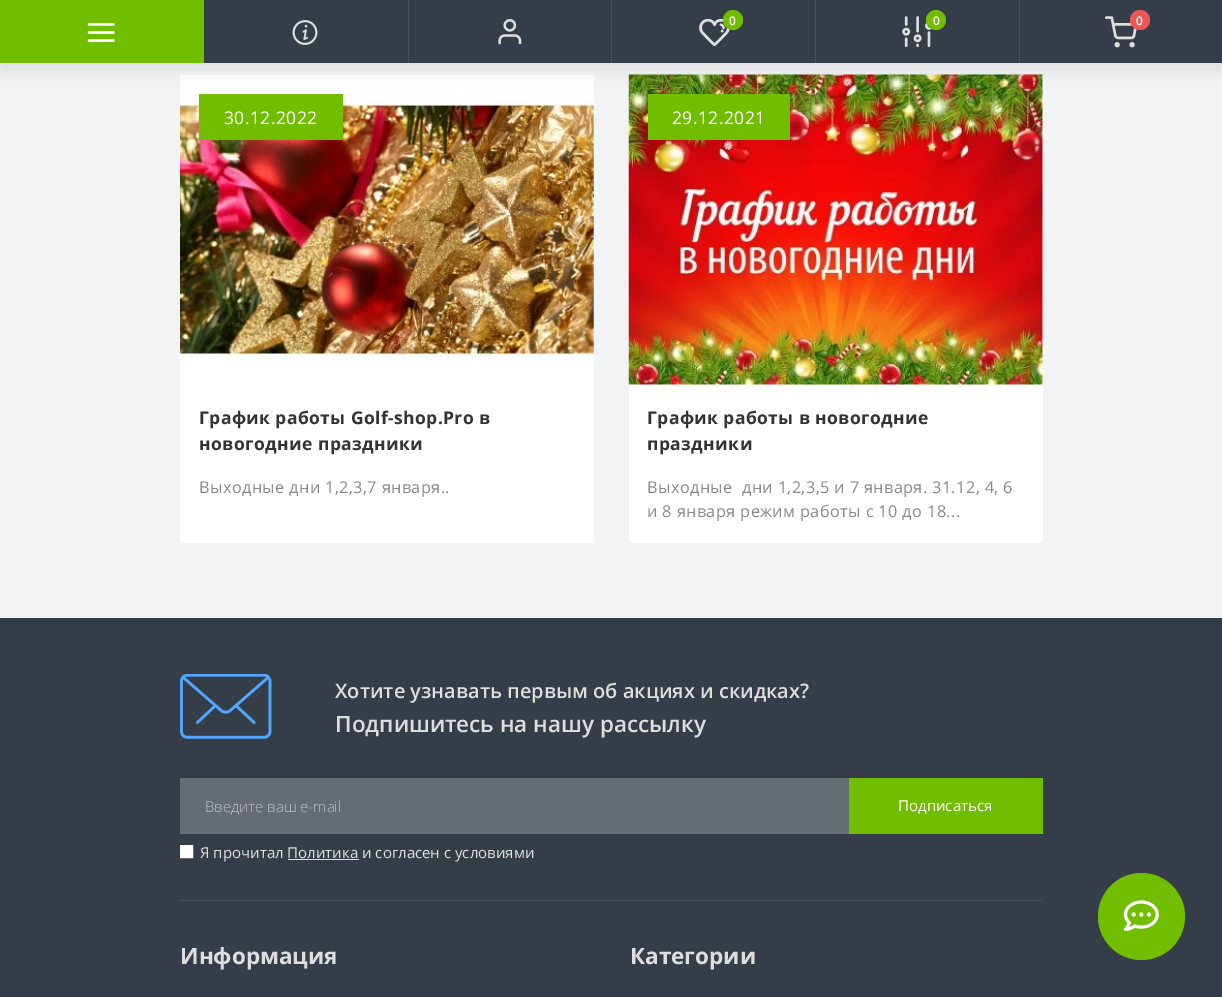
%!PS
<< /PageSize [1222 997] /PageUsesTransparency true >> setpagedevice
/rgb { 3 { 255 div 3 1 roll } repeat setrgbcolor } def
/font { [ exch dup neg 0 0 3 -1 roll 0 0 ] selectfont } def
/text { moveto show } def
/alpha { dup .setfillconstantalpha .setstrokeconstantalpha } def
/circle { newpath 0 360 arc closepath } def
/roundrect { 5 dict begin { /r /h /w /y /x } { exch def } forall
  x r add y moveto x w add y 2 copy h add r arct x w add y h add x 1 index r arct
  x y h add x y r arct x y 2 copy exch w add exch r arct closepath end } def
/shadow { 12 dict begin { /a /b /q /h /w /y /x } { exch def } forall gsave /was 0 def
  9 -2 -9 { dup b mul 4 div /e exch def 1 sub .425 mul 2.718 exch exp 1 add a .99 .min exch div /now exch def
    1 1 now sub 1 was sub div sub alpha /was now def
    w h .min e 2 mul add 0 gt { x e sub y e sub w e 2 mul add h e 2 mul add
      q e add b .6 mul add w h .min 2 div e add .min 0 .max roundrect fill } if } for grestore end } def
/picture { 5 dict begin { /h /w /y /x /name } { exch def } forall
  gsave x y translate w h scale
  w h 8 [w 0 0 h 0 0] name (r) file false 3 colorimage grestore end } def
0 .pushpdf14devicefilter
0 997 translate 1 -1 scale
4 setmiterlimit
242 243 245 rgb
0 0 1222 997 rectfill
255 255 255 rgb
180 75 414 468 1 roundrect fill
(img_07.rgb) 180 74 414 282 picture
113 190 0 rgb
199 94 144 46 rectfill
255 255 255 rgb
629 75 414 468 1 roundrect fill
(img_08.rgb) 628 74 415 311 picture
113 190 0 rgb
648 94 142 46 rectfill
0 0 0 rgb
0 5 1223 63 0 9.5 0.1 shadow
53 62 72 rgb
204 0 1018 63 rectfill
113 190 0 rgb
0 0 204 63 rectfill
(img_01.rgb) 87 23 28 19 picture
(img_02.rgb) 292 20 26 25 picture
73 81 90 rgb
408 0 1 63 rectfill
(img_03.rgb) 498 19 24 26 picture
611 0 1 63 rectfill
(img_04.rgb) 699 19 31 27 picture
113 190 0 rgb
733 20 10 circle fill
73 81 90 rgb
815 0 1 63 rectfill
(img_05.rgb) 902 16 30 32 picture
113 190 0 rgb
936 20 10 circle fill
73 81 90 rgb
1019 0 1 63 rectfill
(img_06.rgb) 1105 16 32 32 picture
235 87 87 rgb
1140 20 10 circle fill
53 62 72 rgb
0 618 1222 379 rectfill
(img_09.rgb) 180 674 92 65 picture
101 108 115 rgb
181 778 moveto 668 0 rlineto 0 56 rlineto -668 0 rlineto -0.5 0 -1 -0.5 -1 -1 rcurveto 0 -54 rlineto 0 -0.5 0.5 -1 1 -1 rcurveto closepath fill
113 190 0 rgb
849 778 194 56 rectfill
255 255 255 rgb
180.5 845.5 moveto 12 0 rlineto 0 12 rlineto -12 0 rlineto closepath gsave fill grestore
249 249 249 rgb
stroke
222 222 222 rgb
288 859 71 1 rectfill
73 81 90 rgb
180 900 863 1 rectfill
113 190 0 rgb
1141.5 916.5 43.5 circle fill
(img_10.rgb) 1123 900 36 31 picture
/OpenSans-SemiBold 12 font
255 255 255 rgb
(0) 729 25 text
(0) 933 25 text
(0) 1136 25 text
/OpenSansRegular-Regular 17.5 font
224 124 moveto 0.4 0 (30.12.2022) ashow
/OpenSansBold-Bold 17.5 font
51 51 51 rgb
199 424 moveto 0.4 0 (График работы Golf-shop.Pro в) ashow
199 450 moveto 0.4 0 (новогодние праздники) ashow
/OpenSansRegular-Regular 16.25 font
137 137 137 rgb
199 493 moveto 0.4 0 (Выходные дни 1,2,3,7 января..) ashow
/OpenSansRegular-Regular 17.5 font
255 255 255 rgb
672 124 moveto 0.4 0 (29.12.2021) ashow
/OpenSansBold-Bold 17.5 font
51 51 51 rgb
647 424 moveto 0.4 0 (График работы в новогодние) ashow
647 450 moveto 0.4 0 (праздники) ashow
/OpenSansRegular-Regular 16.25 font
137 137 137 rgb
647 493 moveto 0.4 0 (Выходные  дни 1,2,3,5 и 7 января. 31.12, 4, 6) ashow
647 517 moveto 0.4 0 (и 8 января режим работы с 10 до 18...) ashow
/OpenSans-SemiBold 20 font
222 222 222 rgb
(Хотите узнавать первым об акциях и скидках?) 335 698 text
/OpenSans-SemiBold 22.5 font
(Подпишитесь на нашу рассылку) 335 732 text
/OpenSans-Light 15 font
194 194 194 rgb
(Введите ваш e-mail) 205 812 text
/OpenSansRegular-Regular 15 font
255 255 255 rgb
(Подписаться) 898 811 text
222 222 222 rgb
(Я прочитал Политика и согласен с условиями) 200 858 text
/OpenSansBold-Bold 22.5 font
(Информация) 180 964 text
(Категории) 630 964 text
.poppdf14devicefilter showpage
